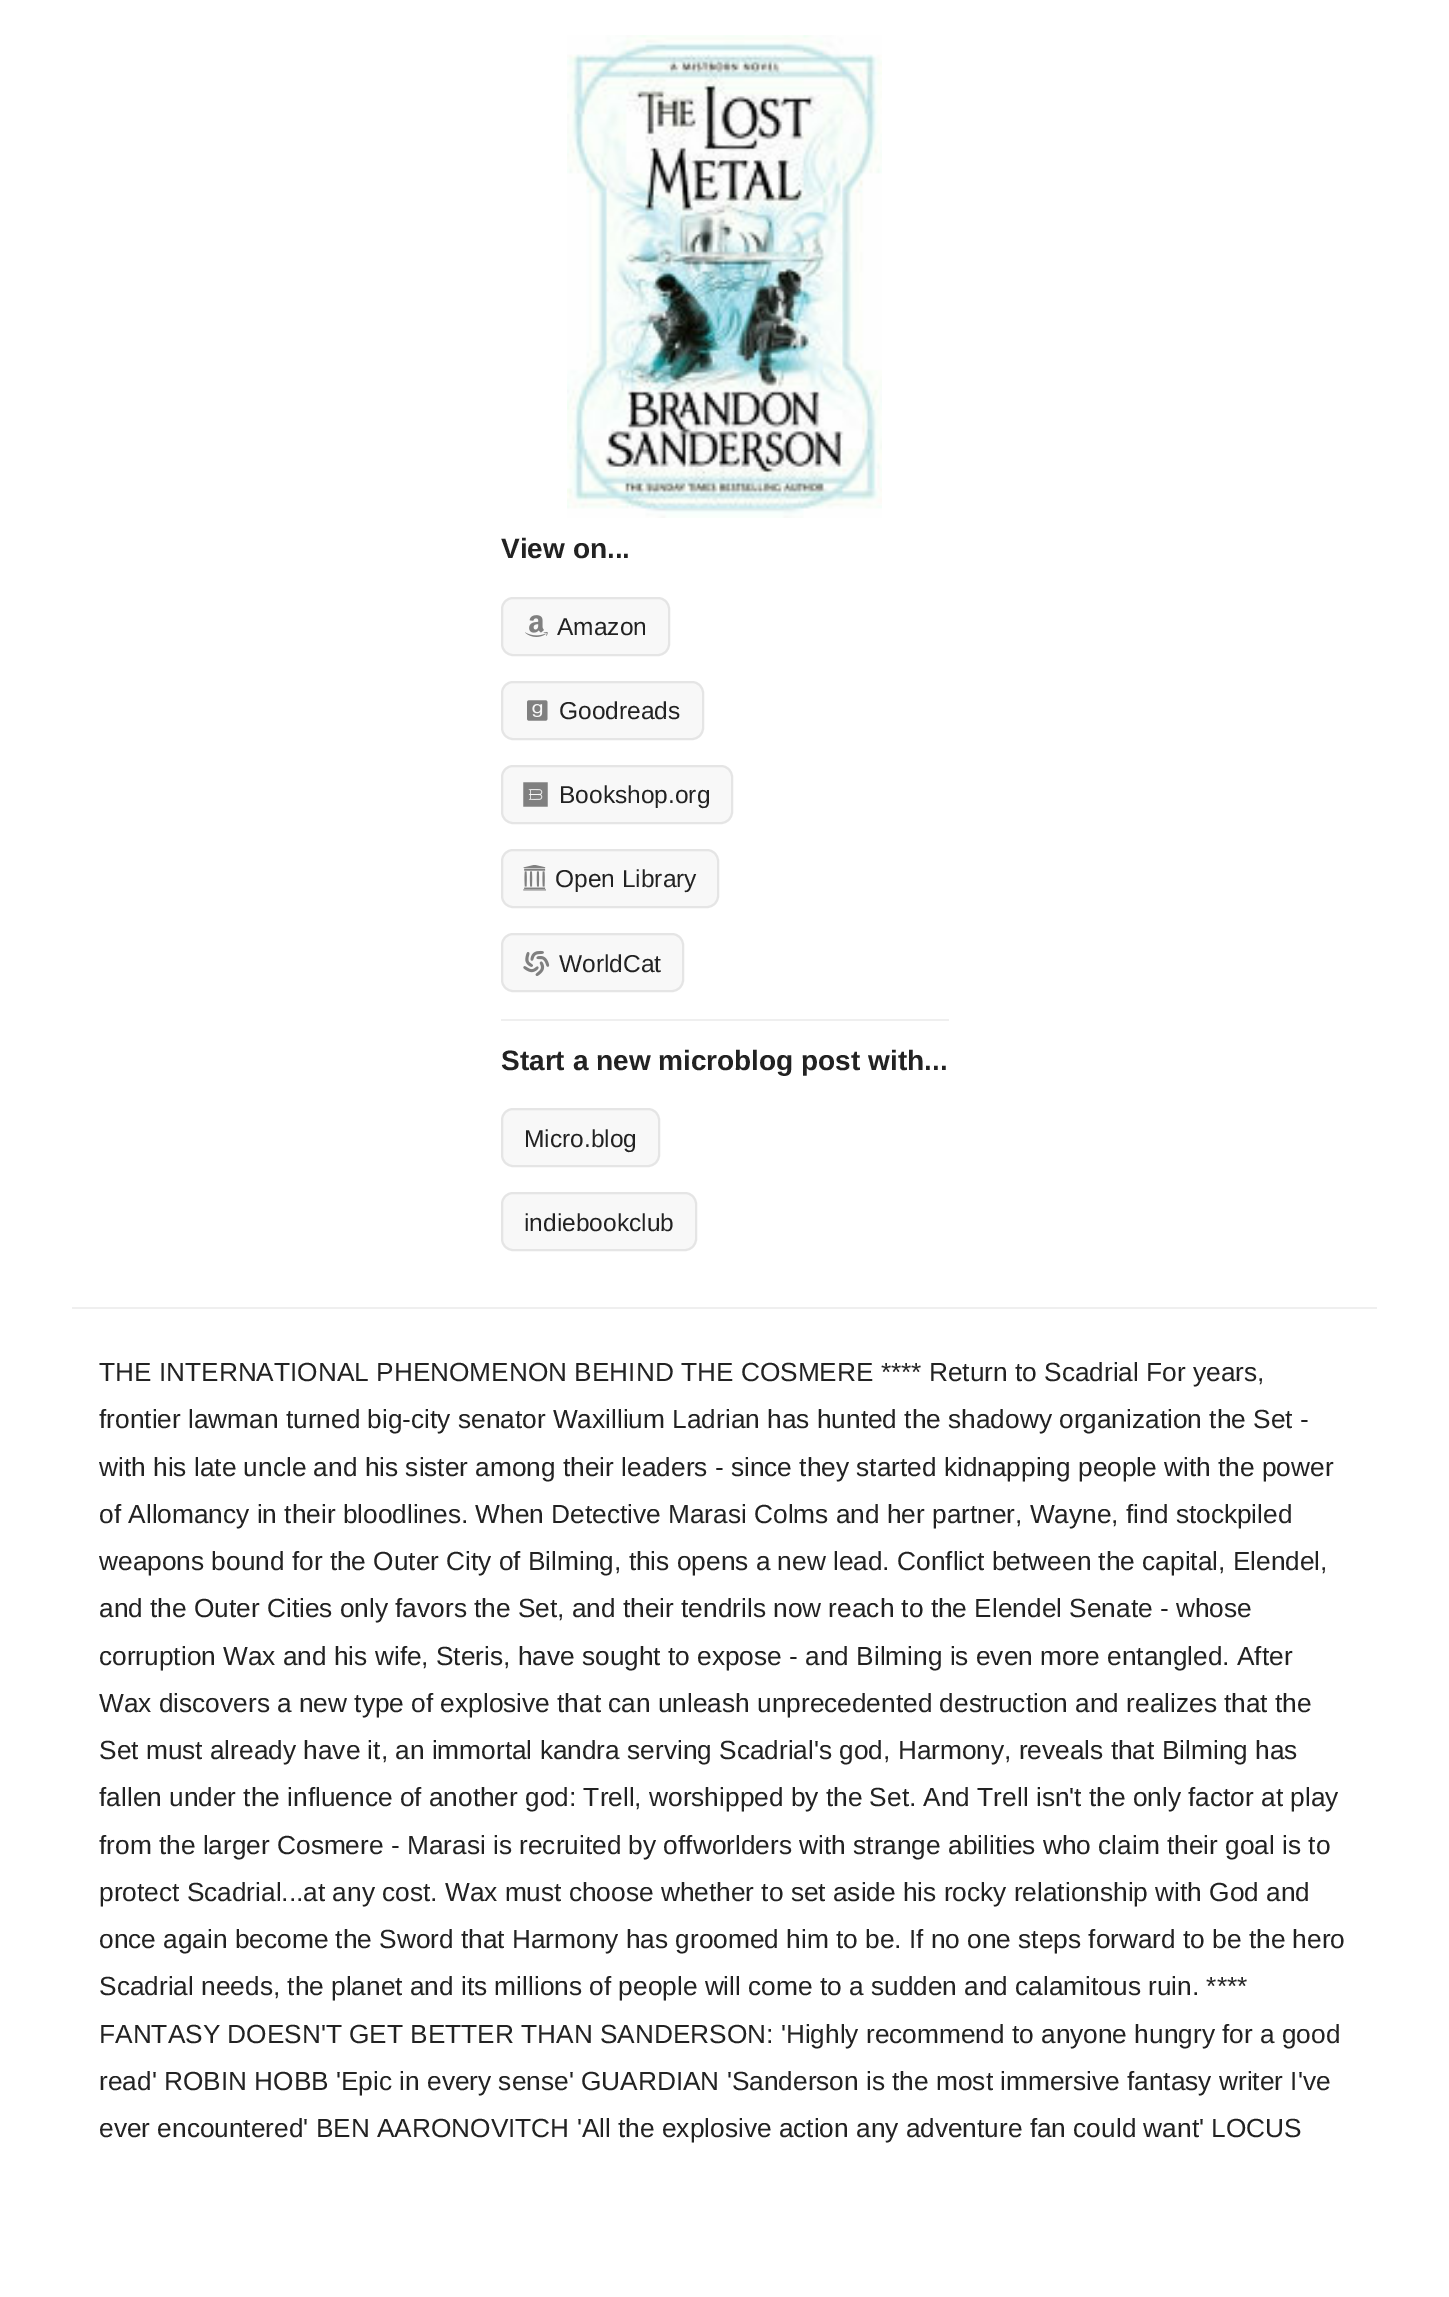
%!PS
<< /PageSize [1449 2297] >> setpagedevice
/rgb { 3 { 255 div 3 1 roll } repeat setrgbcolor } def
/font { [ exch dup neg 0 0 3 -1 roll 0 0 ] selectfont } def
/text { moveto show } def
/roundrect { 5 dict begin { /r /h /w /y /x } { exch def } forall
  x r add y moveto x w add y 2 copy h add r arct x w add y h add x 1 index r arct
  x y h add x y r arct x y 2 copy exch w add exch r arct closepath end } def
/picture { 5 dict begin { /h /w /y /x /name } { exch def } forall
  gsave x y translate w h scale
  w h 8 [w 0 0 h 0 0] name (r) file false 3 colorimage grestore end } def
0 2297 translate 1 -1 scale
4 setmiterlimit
255 255 255 rgb
0 0 1449 2297 rectfill
(img_01.rgb) 567 35 315 483 picture
248 248 248 rgb
502 598 167 57 11 roundrect gsave fill grestore
229 229 229 rgb
2 setlinewidth
stroke
(img_02.rgb) 525 615 23 22 picture
248 248 248 rgb
502 682 201 57 11 roundrect gsave fill grestore
229 229 229 rgb
stroke
(img_03.rgb) 527 700 21 21 picture
248 248 248 rgb
502 766 230 57 11 roundrect gsave fill grestore
229 229 229 rgb
stroke
(img_04.rgb) 523 782 25 25 picture
248 248 248 rgb
502 850 216 57 11 roundrect gsave fill grestore
229 229 229 rgb
stroke
(img_05.rgb) 523 865 23 26 picture
248 248 248 rgb
502 934 181 57 11 roundrect gsave fill grestore
229 229 229 rgb
stroke
(img_06.rgb) 523 950 27 26 picture
239 239 239 rgb
501 1019 448 2 rectfill
248 248 248 rgb
502 1109 157 57 11 roundrect gsave fill grestore
229 229 229 rgb
stroke
248 248 248 rgb
502 1193 194 57 11 roundrect gsave fill grestore
229 229 229 rgb
stroke
239 239 239 rgb
72 1307 1305 2 rectfill
/LiberationSans-Bold 28 font
34 34 34 rgb
(View on...) 501 558 text
/LiberationSans-Regular 24.5 font
(Amazon) 557 635 text
(Goodreads) 559 719 text
(Bookshop.org) 559 803 text
(Open Library) 555 887 text
(WorldCat) 559 972 text
/LiberationSans-Bold 28 font
(Start a new microblog post with...) 501 1070 text
/LiberationSans-Regular 24.5 font
(Micro.blog) 524 1147 text
(indiebookclub) 524 1231 text
/LiberationSans-Regular 26.25 font
(THE INTERNATIONAL PHENOMENON BEHIND THE COSMERE **** Return to Scadrial For years,) 99 1381 text
(frontier lawman turned big-city senator Waxillium Ladrian has hunted the shadowy organization the Set -) 99 1428 text
(with his late uncle and his sister among their leaders - since they started kidnapping people with the power) 99 1476 text
(of Allomancy in their bloodlines. When Detective Marasi Colms and her partner, Wayne, find stockpiled) 99 1523 text
(weapons bound for the Outer City of Bilming, this opens a new lead. Conflict between the capital, Elendel,) 99 1570 text
(and the Outer Cities only favors the Set, and their tendrils now reach to the Elendel Senate - whose) 99 1617 text
(corruption Wax and his wife, Steris, have sought to expose - and Bilming is even more entangled. After) 99 1665 text
(Wax discovers a new type of explosive that can unleash unprecedented destruction and realizes that the) 99 1712 text
(Set must already have it, an immortal kandra serving Scadrial's god, Harmony, reveals that Bilming has) 99 1759 text
(fallen under the influence of another god: Trell, worshipped by the Set. And Trell isn't the only factor at play) 99 1806 text
(from the larger Cosmere - Marasi is recruited by offworlders with strange abilities who claim their goal is to) 99 1854 text
(protect Scadrial...at any cost. Wax must choose whether to set aside his rocky relationship with God and) 99 1901 text
(once again become the Sword that Harmony has groomed him to be. If no one steps forward to be the hero) 99 1948 text
(Scadrial needs, the planet and its millions of people will come to a sudden and calamitous ruin. ****) 99 1995 text
(FANTASY DOESN'T GET BETTER THAN SANDERSON: 'Highly recommend to anyone hungry for a good) 99 2043 text
(read' ROBIN HOBB 'Epic in every sense' GUARDIAN 'Sanderson is the most immersive fantasy writer I've) 99 2090 text
(ever encountered' BEN AARONOVITCH 'All the explosive action any adventure fan could want' LOCUS) 99 2137 text
showpage
